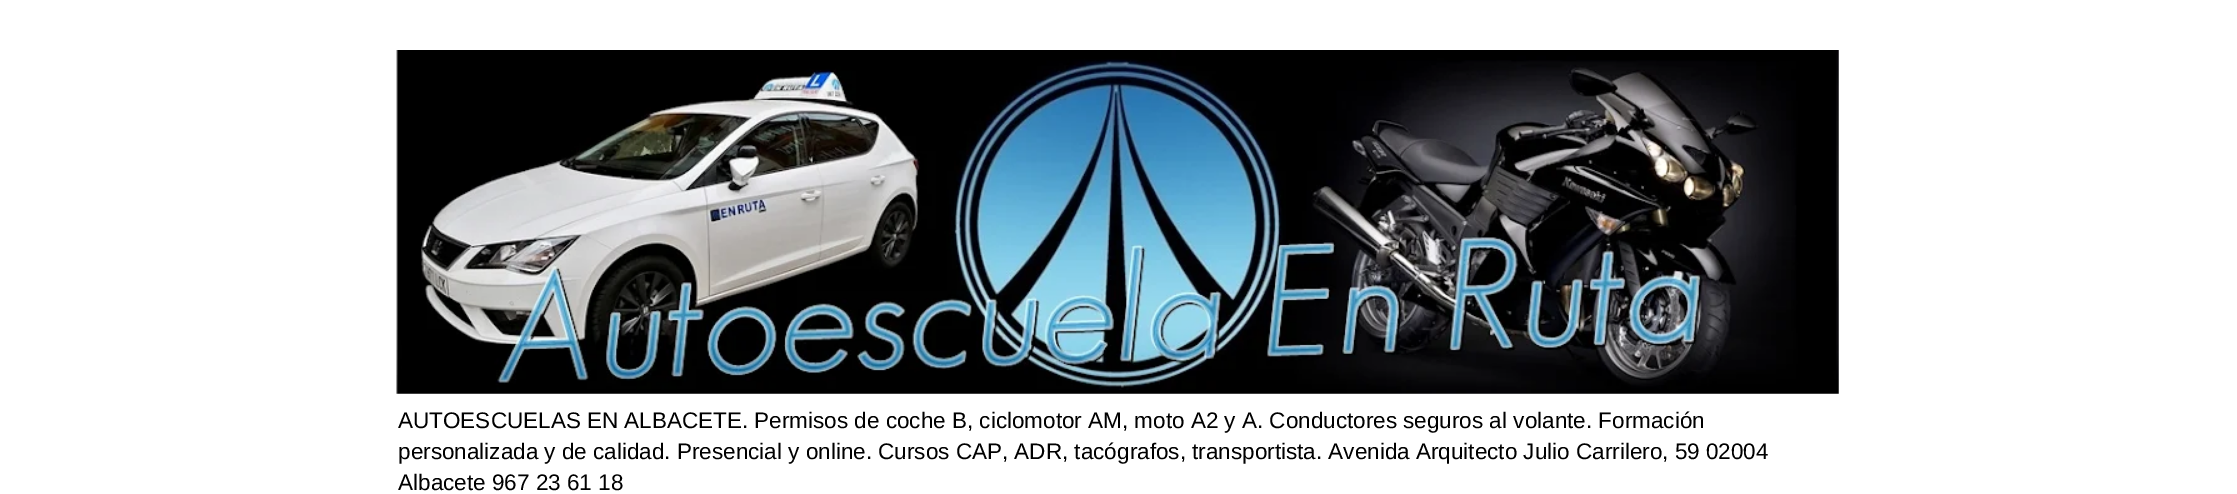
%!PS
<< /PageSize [2237 494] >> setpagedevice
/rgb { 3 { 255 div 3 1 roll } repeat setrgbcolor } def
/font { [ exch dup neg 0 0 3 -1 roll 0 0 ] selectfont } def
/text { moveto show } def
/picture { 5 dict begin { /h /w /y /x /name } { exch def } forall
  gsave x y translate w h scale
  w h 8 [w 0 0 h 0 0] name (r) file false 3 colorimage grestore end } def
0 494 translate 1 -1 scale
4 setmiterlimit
255 255 255 rgb
0 0 2237 494 rectfill
(img_01.rgb) 396 50 1443 344 picture
/LiberationSans-Regular 22.5 font
0 0 0 rgb
(AUTOESCUELAS EN ALBACETE. Permisos de coche B, ciclomotor AM, moto A2 y A. Conductores seguros al volante. Formación) 398 428 text
(personalizada y de calidad. Presencial y online. Cursos CAP, ADR, tacógrafos, transportista. Avenida Arquitecto Julio Carrilero, 59 02004) 398 459 text
(Albacete 967 23 61 18) 398 490 text
showpage
